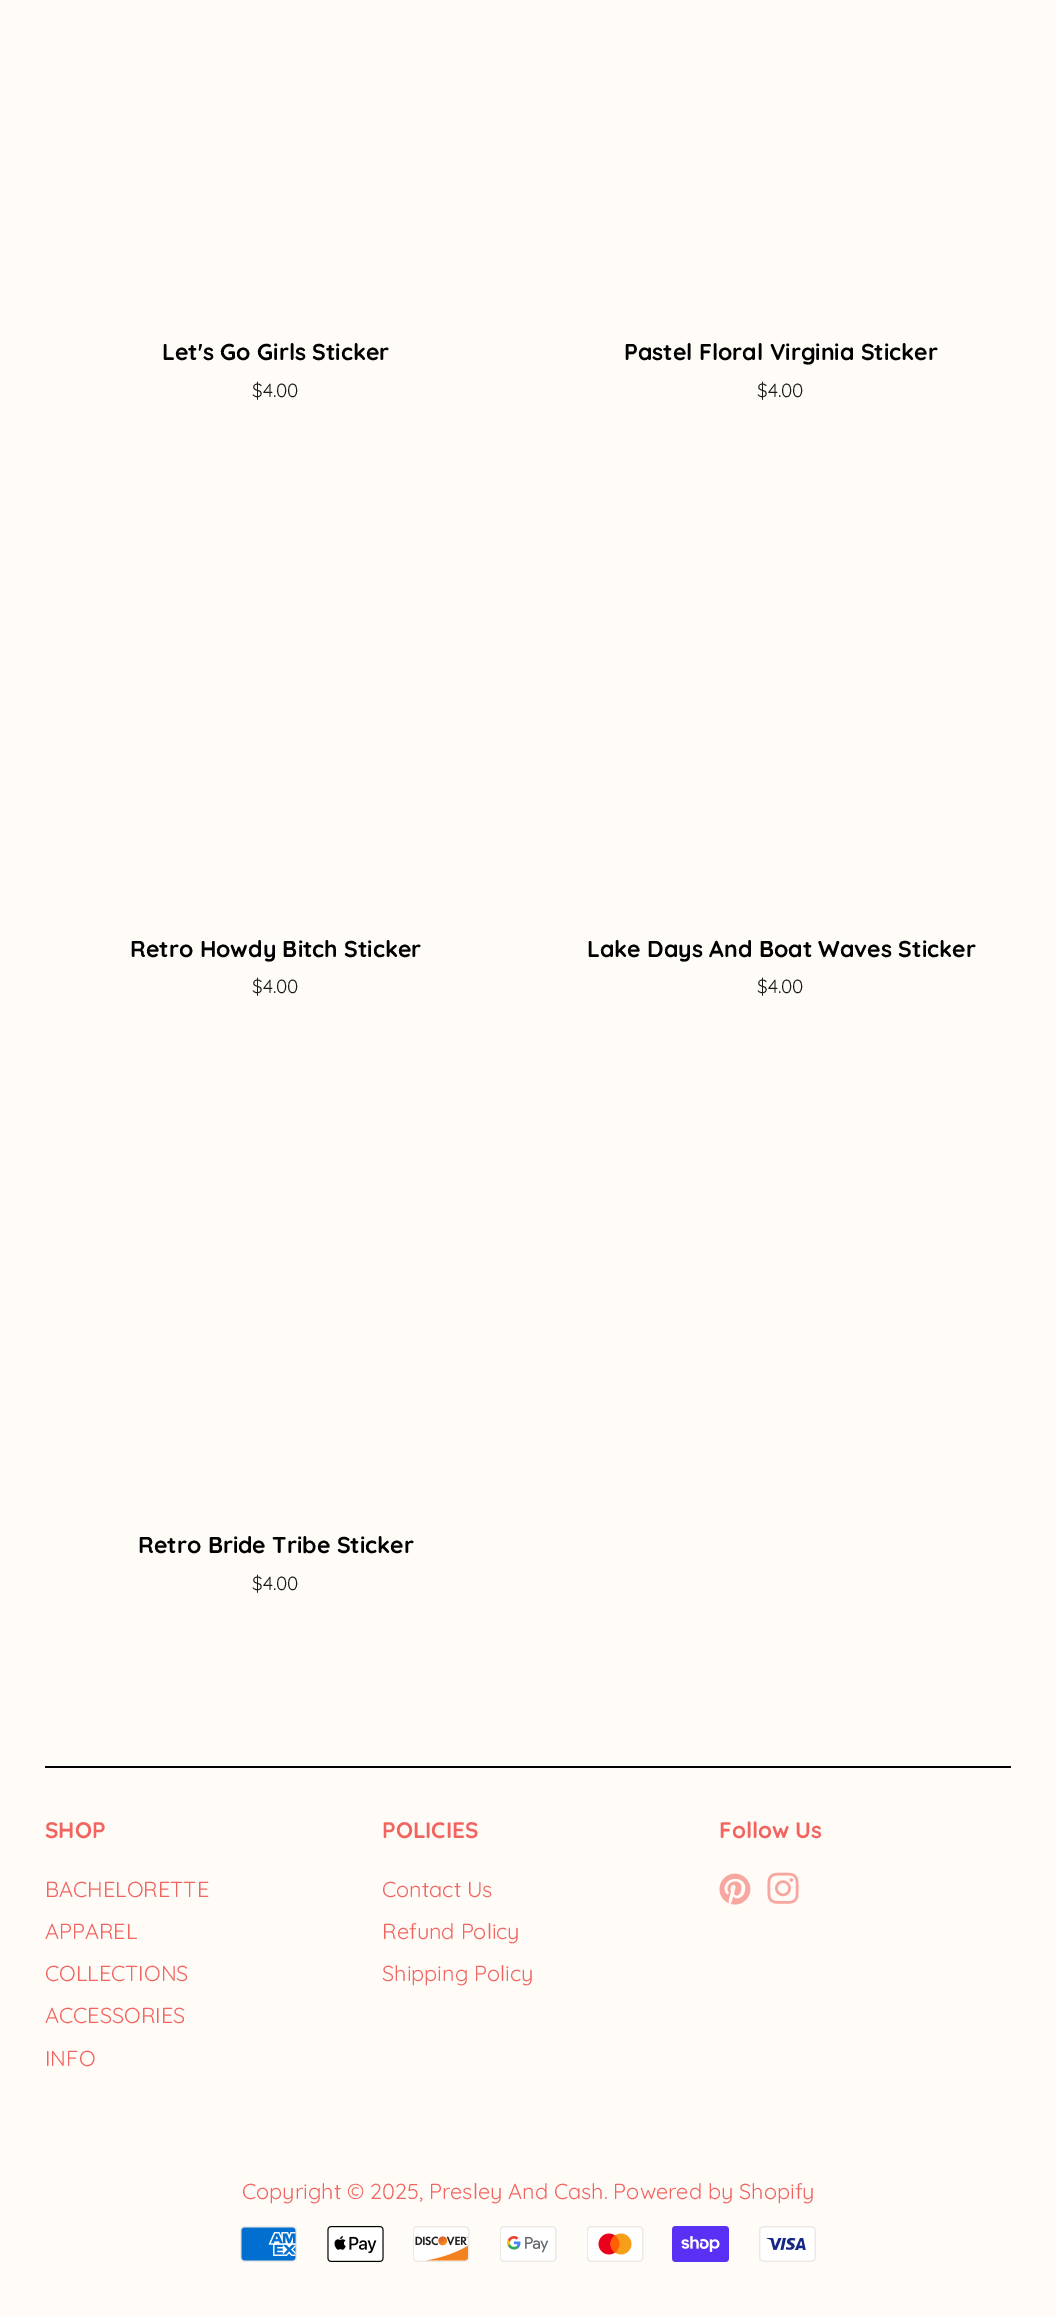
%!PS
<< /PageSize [1056 2316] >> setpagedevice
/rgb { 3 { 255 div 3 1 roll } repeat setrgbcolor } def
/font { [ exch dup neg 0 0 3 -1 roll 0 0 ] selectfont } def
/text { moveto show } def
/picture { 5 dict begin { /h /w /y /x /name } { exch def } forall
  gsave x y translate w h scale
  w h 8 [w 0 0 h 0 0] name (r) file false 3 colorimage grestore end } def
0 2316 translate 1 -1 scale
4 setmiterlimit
255 251 247 rgb
0 0 1056 2316 rectfill
0 0 0 rgb
45 1766 966 2 rectfill
(img_01.rgb) 719 1873 32 32 picture
(img_02.rgb) 767 1872 32 32 picture
(img_03.rgb) 240 2226 57 36 picture
(img_04.rgb) 327 2226 57 36 picture
(img_05.rgb) 413 2226 57 36 picture
(img_06.rgb) 500 2226 57 36 picture
(img_07.rgb) 587 2226 57 36 picture
(img_08.rgb) 672 2226 57 36 picture
(img_09.rgb) 759 2226 57 36 picture
/Quicksand-Bold 23 font
(Let's Go Girls Sticker) 162 360 text
/Quicksand-Regular 19 font
26 26 26 rgb
($4.00) 252 397 text
/Quicksand-Bold 23 font
0 0 0 rgb
(Pastel Floral Virginia Sticker) 624 360 text
/Quicksand-Regular 19 font
26 26 26 rgb
($4.00) 757 397 text
/Quicksand-Bold 23 font
0 0 0 rgb
(Retro Howdy Bitch Sticker) 130 957 text
/Quicksand-Regular 19 font
26 26 26 rgb
($4.00) 252 993 text
/Quicksand-Bold 23 font
0 0 0 rgb
(Lake Days And Boat Waves Sticker) 587 957 text
/Quicksand-Regular 19 font
26 26 26 rgb
($4.00) 757 993 text
/Quicksand-Bold 23 font
0 0 0 rgb
(Retro Bride Tribe Sticker) 138 1553 text
/Quicksand-Regular 19 font
26 26 26 rgb
($4.00) 252 1590 text
/Quicksand-Bold 22.5 font
241 100 96 rgb
(SHOP) 45 1838 text
/Quicksand-Regular 21.7 font
(BACHELORETTE) 45 1897 text
(APPAREL) 45 1939 text
(COLLECTIONS) 45 1981 text
(ACCESSORIES) 45 2023 text
(INFO) 45 2066 text
/Quicksand-Bold 22.5 font
(POLICIES) 382 1838 text
/Quicksand-Regular 21.7 font
(Contact Us) 382 1897 text
(Refund Policy) 382 1939 text
(Shipping Policy) 382 1981 text
/Quicksand-Bold 22.5 font
(Follow Us) 719 1838 text
/Quicksand-Regular 21.7 font
(Copyright © 2025, Presley And Cash. Powered by Shopify) 242 2199 text
showpage
